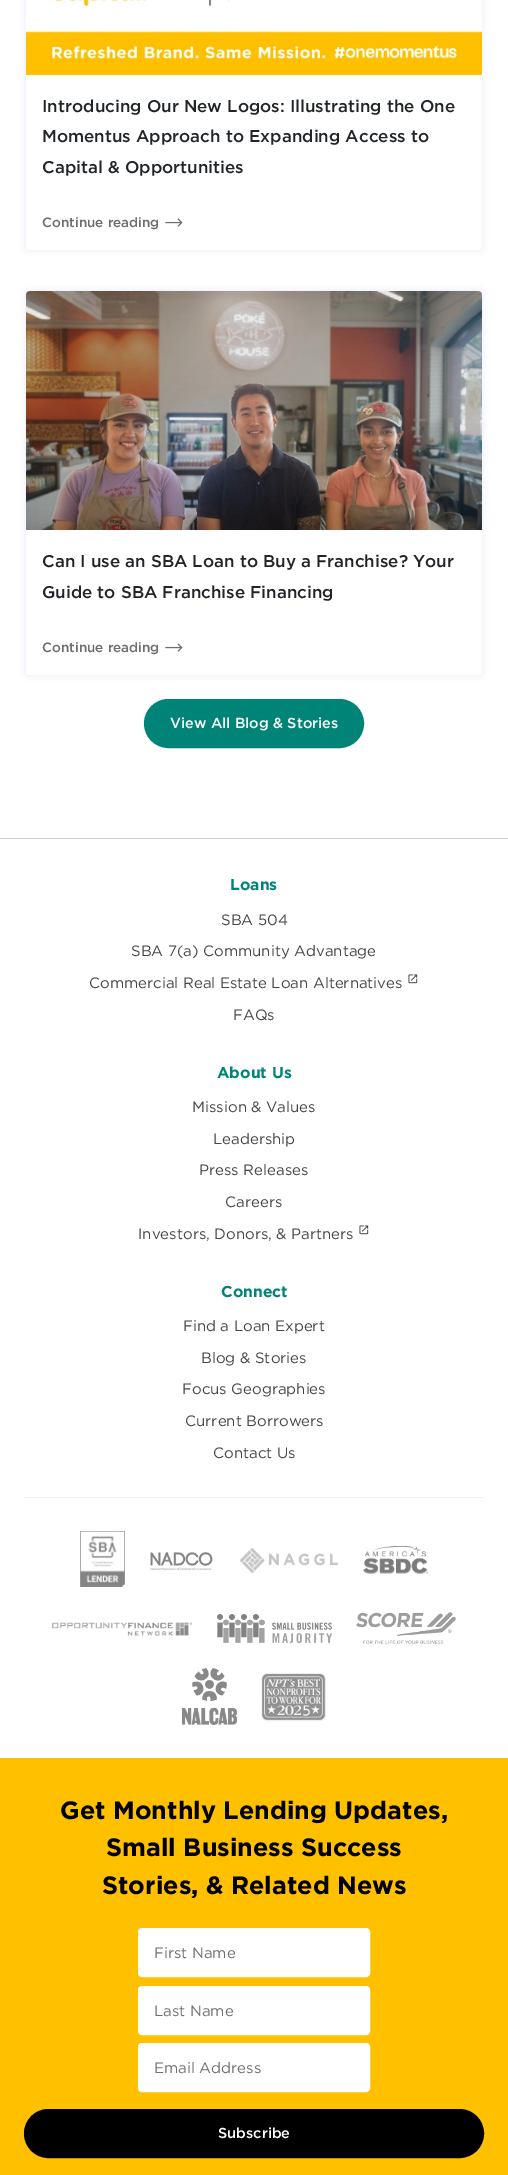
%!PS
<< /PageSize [508 2175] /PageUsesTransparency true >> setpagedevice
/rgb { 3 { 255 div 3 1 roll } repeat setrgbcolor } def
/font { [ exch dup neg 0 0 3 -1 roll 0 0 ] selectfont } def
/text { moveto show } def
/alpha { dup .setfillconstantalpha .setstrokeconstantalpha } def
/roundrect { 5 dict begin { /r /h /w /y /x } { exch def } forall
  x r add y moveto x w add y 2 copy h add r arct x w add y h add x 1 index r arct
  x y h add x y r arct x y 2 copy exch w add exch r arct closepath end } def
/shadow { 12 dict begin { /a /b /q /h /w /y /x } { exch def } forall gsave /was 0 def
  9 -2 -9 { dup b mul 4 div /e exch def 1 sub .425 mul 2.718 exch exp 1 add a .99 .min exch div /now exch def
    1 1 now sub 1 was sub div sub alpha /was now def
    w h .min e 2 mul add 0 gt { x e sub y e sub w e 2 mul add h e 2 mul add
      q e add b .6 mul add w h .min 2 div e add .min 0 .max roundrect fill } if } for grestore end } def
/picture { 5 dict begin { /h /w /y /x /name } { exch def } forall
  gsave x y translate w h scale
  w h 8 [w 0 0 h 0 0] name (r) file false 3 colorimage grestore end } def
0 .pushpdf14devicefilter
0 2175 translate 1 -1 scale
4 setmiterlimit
255 255 255 rgb
0 0 508 2175 rectfill
69 101 178 rgb
25 -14 458 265 5 3 0.11 shadow
255 255 255 rgb
26 -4 456 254 4 roundrect fill
(img_01.rgb) 26 0 456 75 picture
(img_02.rgb) 165 218 18 9 picture
69 101 178 rgb
25 290 458 386 5 3 0.11 shadow
255 255 255 rgb
26 291 456 384 4 roundrect fill
(img_03.rgb) 26 291 456 239 picture
(img_02.rgb) 165 643 18 9 picture
0 132 120 rgb
145 700 218 47 23.5 roundrect gsave fill grestore
2 setlinewidth
stroke
208 208 208 rgb
0 838 508 1 rectfill
(img_04.rgb) 408 974 10 10 picture
(img_04.rgb) 359 1225 10 10 picture
242 242 242 rgb
24 1497 460 1 rectfill
(img_05.rgb) 80 1531 45 56 picture
(img_06.rgb) 150 1552 63 19 picture
(img_07.rgb) 240 1548 99 26 picture
(img_08.rgb) 363 1546 65 28 picture
(img_09.rgb) 52 1622 140 14 picture
(img_10.rgb) 217 1614 115 29 picture
(img_11.rgb) 356 1612 100 32 picture
(img_12.rgb) 182 1668 55 57 picture
(img_13.rgb) 261 1673 65 48 picture
255 192 0 rgb
0 1758 508 417 rectfill
255 255 255 rgb
138.5 1928.5 231 48 3.5 roundrect gsave fill grestore
1 setlinewidth
stroke
138.5 1986.5 231 48 3.5 roundrect gsave fill grestore
stroke
138.5 2043.5 231 48 3.5 roundrect gsave fill grestore
stroke
0 0 0 rgb
25 2110 458 47 23.5 roundrect gsave fill grestore
2 setlinewidth
stroke
/Gotham-Medium 17 font
33 37 41 rgb
(Introducing Our New Logos: Illustrating the One) 42 112 text
(Momentus Approach to Expanding Access to) 42 142 text
(Capital & Opportunities) 42 173 text
/Gotham-Medium 13.5 font
109 110 113 rgb
(Continue reading) 42 227 text
/Gotham-Medium 17 font
33 37 41 rgb
(Can I use an SBA Loan to Buy a Franchise? Your) 42 567 text
(Guide to SBA Franchise Financing) 42 598 text
/Gotham-Medium 13.5 font
109 110 113 rgb
(Continue reading) 42 652 text
/Gotham-Medium 14.5 font
255 255 255 rgb
(View All Blog & Stories) 170 728 text
/Gotham-Bold 15.75 font
0 132 120 rgb
(Loans) 230 890 text
/Gotham-Regular 15 font
70 70 70 rgb
(SBA 504) 221 925 text
(SBA 7\(a\) Community Advantage) 131 956 text
(Commercial Real Estate Loan Alternatives) 89 988 text
(FAQs) 233 1020 text
/Gotham-Bold 15.75 font
0 132 120 rgb
(About Us) 217 1078 text
/Gotham-Regular 15 font
70 70 70 rgb
(Mission & Values) 192 1112 text
(Leadership) 213 1144 text
(Press Releases) 199 1175 text
(Careers) 225 1207 text
(Investors, Donors, & Partners) 138 1239 text
/Gotham-Bold 15.75 font
0 132 120 rgb
(Connect) 221 1297 text
/Gotham-Regular 15 font
70 70 70 rgb
(Find a Loan Expert) 183 1331 text
(Blog & Stories) 201 1363 text
(Focus Geographies) 182 1394 text
(Current Borrowers) 185 1426 text
(Contact Us) 213 1458 text
/Gotham-Bold 25.1 font
0 0 0 rgb
(Get Monthly Lending Updates,) 60 1819 text
(Small Business Success) 106 1856 text
(Stories, & Related News) 102 1894 text
/Gotham-Regular 15 font
109 110 113 rgb
(First Name) 154 1958 text
(Last Name) 154 2016 text
(Email Address) 154 2073 text
/Gotham-Medium 14.5 font
255 255 255 rgb
(Subscribe) 218 2138 text
.poppdf14devicefilter showpage
